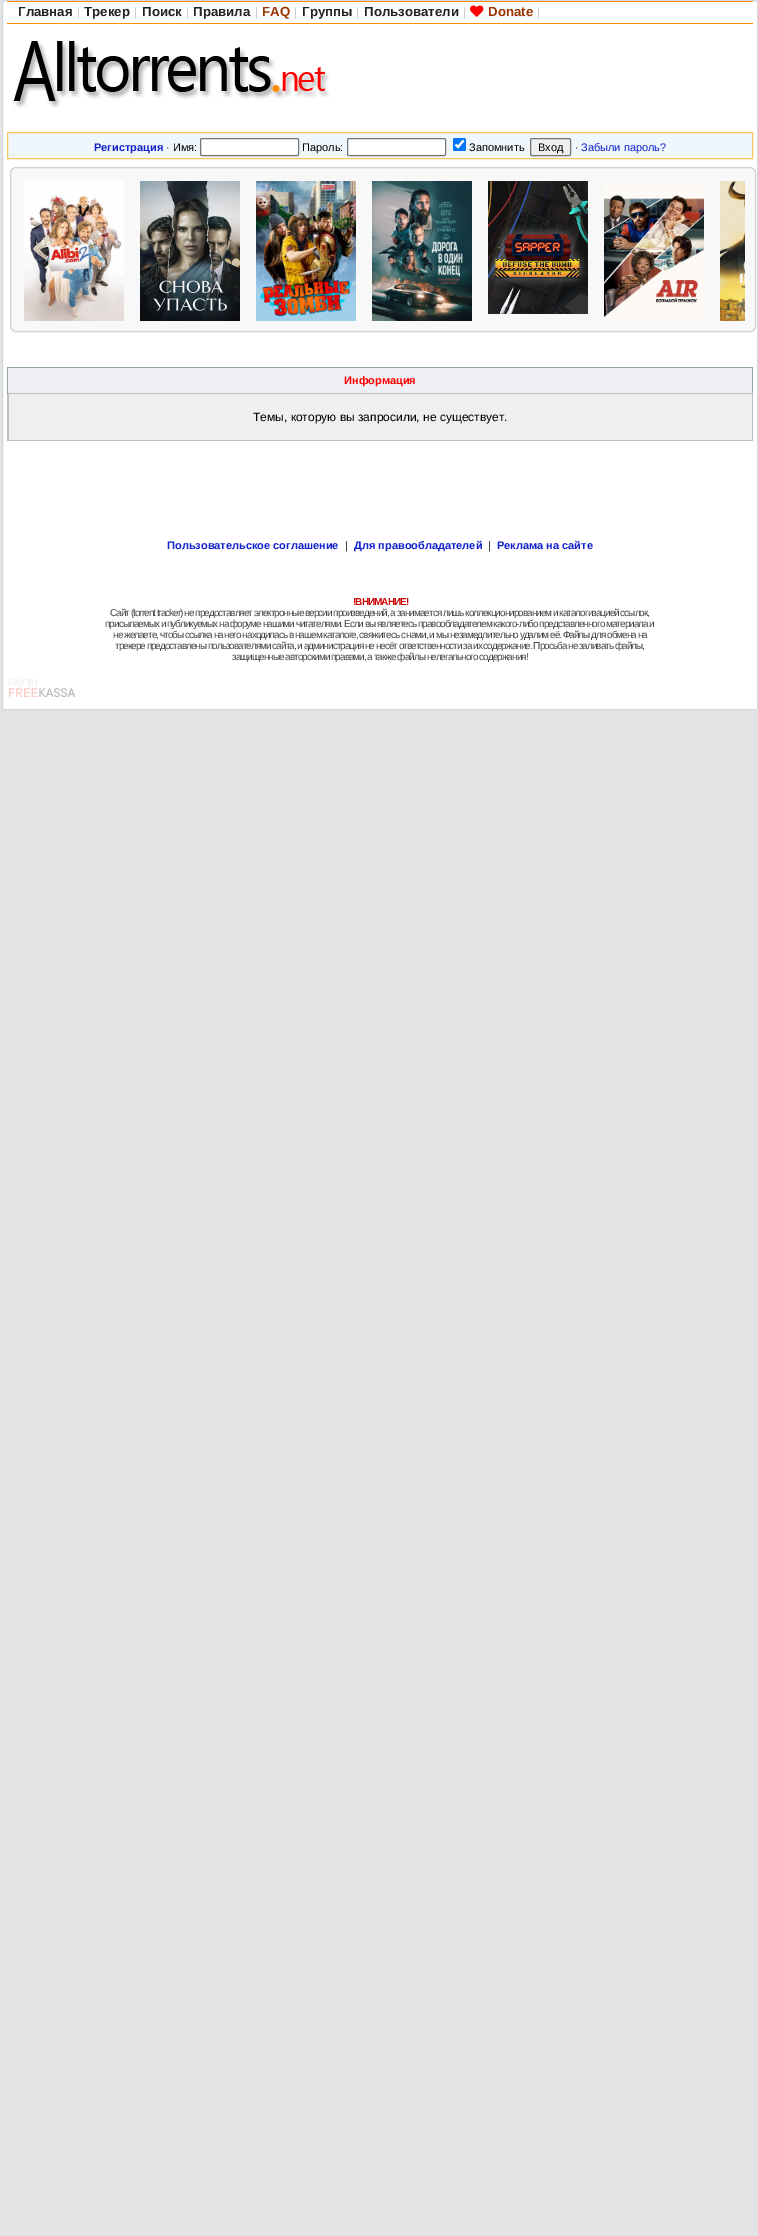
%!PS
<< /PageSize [758 2236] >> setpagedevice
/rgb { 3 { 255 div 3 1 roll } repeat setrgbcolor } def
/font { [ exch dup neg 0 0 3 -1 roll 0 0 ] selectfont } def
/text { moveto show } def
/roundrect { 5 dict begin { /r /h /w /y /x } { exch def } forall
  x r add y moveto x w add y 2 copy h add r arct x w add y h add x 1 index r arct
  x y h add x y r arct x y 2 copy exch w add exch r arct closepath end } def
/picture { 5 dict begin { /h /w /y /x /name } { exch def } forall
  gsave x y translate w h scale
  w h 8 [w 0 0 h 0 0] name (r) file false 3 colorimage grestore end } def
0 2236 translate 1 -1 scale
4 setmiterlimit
227 227 227 rgb
0 0 758 2236 rectfill
255 255 255 rgb
2.5 0.5 moveto 755 0 rlineto 0 709 rlineto -755 0 rlineto closepath gsave fill grestore
209 215 220 rgb
stroke
255 138 0 rgb
7 1 746 1 rectfill
7 23 746 1 rectfill
(img_01.rgb) 470 5 14 12 picture
(img_02.rgb) 13 41 317 67 picture
240 247 252 rgb
7.5 132.5 moveto 745 0 rlineto 0 26 rlineto -745 0 rlineto closepath gsave fill grestore
251 200 95 rgb
stroke
255 255 255 rgb
200.5 138.5 98 17 1.5 roundrect gsave fill grestore
118 118 118 rgb
stroke
255 255 255 rgb
347.5 138.5 98 17 1.5 roundrect gsave fill grestore
118 118 118 rgb
stroke
0 117 255 rgb
453 138 13 13 2 roundrect fill
255 255 255 rgb
2.1 setlinewidth
455.5 144.5 moveto 2.5 2.5 rlineto 5.5 -6.5 rlineto stroke
239 239 239 rgb
530.5 138.5 40 17 1.5 roundrect gsave fill grestore
118 118 118 rgb
1 setlinewidth
stroke
248 248 248 rgb
10.5 167.5 745 164 5.5 roundrect gsave fill grestore
209 209 209 rgb
stroke
(img_03.rgb) 24 181 100 140 picture
(img_04.rgb) 140 181 100 140 picture
(img_05.rgb) 256 181 100 140 picture
(img_06.rgb) 372 181 100 140 picture
(img_07.rgb) 488 181 100 133 picture
(img_08.rgb) 604 181 100 140 picture
(img_09.rgb) 720 181 25 140 picture
183 192 197 rgb
7 394 745 47 rectfill
239 240 243 rgb
8 368 744 25 rectfill
146 163 164 rgb
7 367 746 1 rectfill
183 192 197 rgb
752 393 1 48 rectfill
146 163 164 rgb
752 367 1 27 rectfill
183 192 197 rgb
7 393 746 1 rectfill
146 163 164 rgb
7 367 1 27 rectfill
239 239 239 rgb
9 394 743 46 rectfill
(img_10.rgb) 9 679 67 18 picture
/LiberationSans-Bold 13.25 font
34 34 34 rgb
(Главная) 18 16 text
/LiberationSans-Regular 12 font
205 205 205 rgb
(|) 77 16 text
/LiberationSans-Bold 13.25 font
34 34 34 rgb
(Трекер) 84 16 text
/LiberationSans-Regular 12 font
205 205 205 rgb
(|) 134 16 text
/LiberationSans-Bold 13.25 font
34 34 34 rgb
(Поиск) 142 16 text
/LiberationSans-Regular 12 font
205 205 205 rgb
(|) 186 16 text
/LiberationSans-Bold 13.25 font
34 34 34 rgb
(Правила) 193 16 text
/LiberationSans-Regular 12 font
205 205 205 rgb
(|) 255 16 text
/LiberationSans-Bold 13.25 font
153 51 0 rgb
(FAQ) 262 16 text
/LiberationSans-Regular 12 font
205 205 205 rgb
(|) 294 16 text
/LiberationSans-Bold 13.25 font
34 34 34 rgb
(Группы) 302 16 text
/LiberationSans-Regular 12 font
205 205 205 rgb
(|) 356 16 text
/LiberationSans-Bold 13.25 font
34 34 34 rgb
(Пользователи) 364 16 text
/LiberationSans-Regular 12 font
205 205 205 rgb
(|) 463 16 text
/LiberationSans-Bold 13.25 font
153 51 0 rgb
(Donate) 488 16 text
/LiberationSans-Regular 12 font
205 205 205 rgb
(|) 537 16 text
/LiberationSans-Bold 11 font
17 34 204 rgb
(Регистрация) 94 151 text
/LiberationSans-Regular 11 font
0 0 0 rgb
(· Имя:) 166 151 text
(Пароль:) 302 151 text
(Запомнить) 469 151 text
(Вход) 538 151 text
(·) 575 151 text
17 34 204 rgb
(Забыли пароль?) 581 151 text
/LiberationSans-Bold 11 font
255 0 0 rgb
(Информация) 344 384 text
/LiberationSans-Regular 12 font
0 0 0 rgb
(Темы, которую вы запросили, не существует.) 253 421 text
/LiberationSans-Bold 11 font
17 34 204 rgb
(Пользовательское соглашение) 167 549 text
/LiberationSans-Regular 11 font
0 0 0 rgb
(|) 345 549 text
/LiberationSans-Bold 11 font
17 34 204 rgb
(Для правообладателей) 354 549 text
/LiberationSans-Regular 11 font
0 0 0 rgb
(|) 488 549 text
/LiberationSans-Bold 11 font
17 34 204 rgb
(Реклама на сайте) 497 549 text
/LiberationSans-Bold 10 font
204 0 0 rgb
353 605 moveto -1 0 (!ВНИМАНИЕ!) ashow
/LiberationSans-Regular 10 font
68 68 68 rgb
110 616 moveto -1 0 (Сайт \(torrent tracker\) не предоставляет электронные версии произведений, а занимается лишь коллекционированием и каталогизацией ссылок,) ashow
105 627 moveto -1 0 (присылаемых и публикуемых на форуме нашими читателями. Если вы являетесь правообладателем какого-либо представленного материала и) ashow
113 638 moveto -1 0 (не желаете, чтобы ссылка на него находилась в нашем каталоге, свяжитесь с нами, и мы незамедлительно удалим её. Файлы для обмена на) ashow
115 649 moveto -1 0 (трекере предоставлены пользователями сайта, и администрация не несёт ответственности за их содержание. Просьба не заливать файлы,) ashow
232 660 moveto -1 0 (защищенные авторскими правами, а также файлы нелегального содержания!) ashow
showpage
